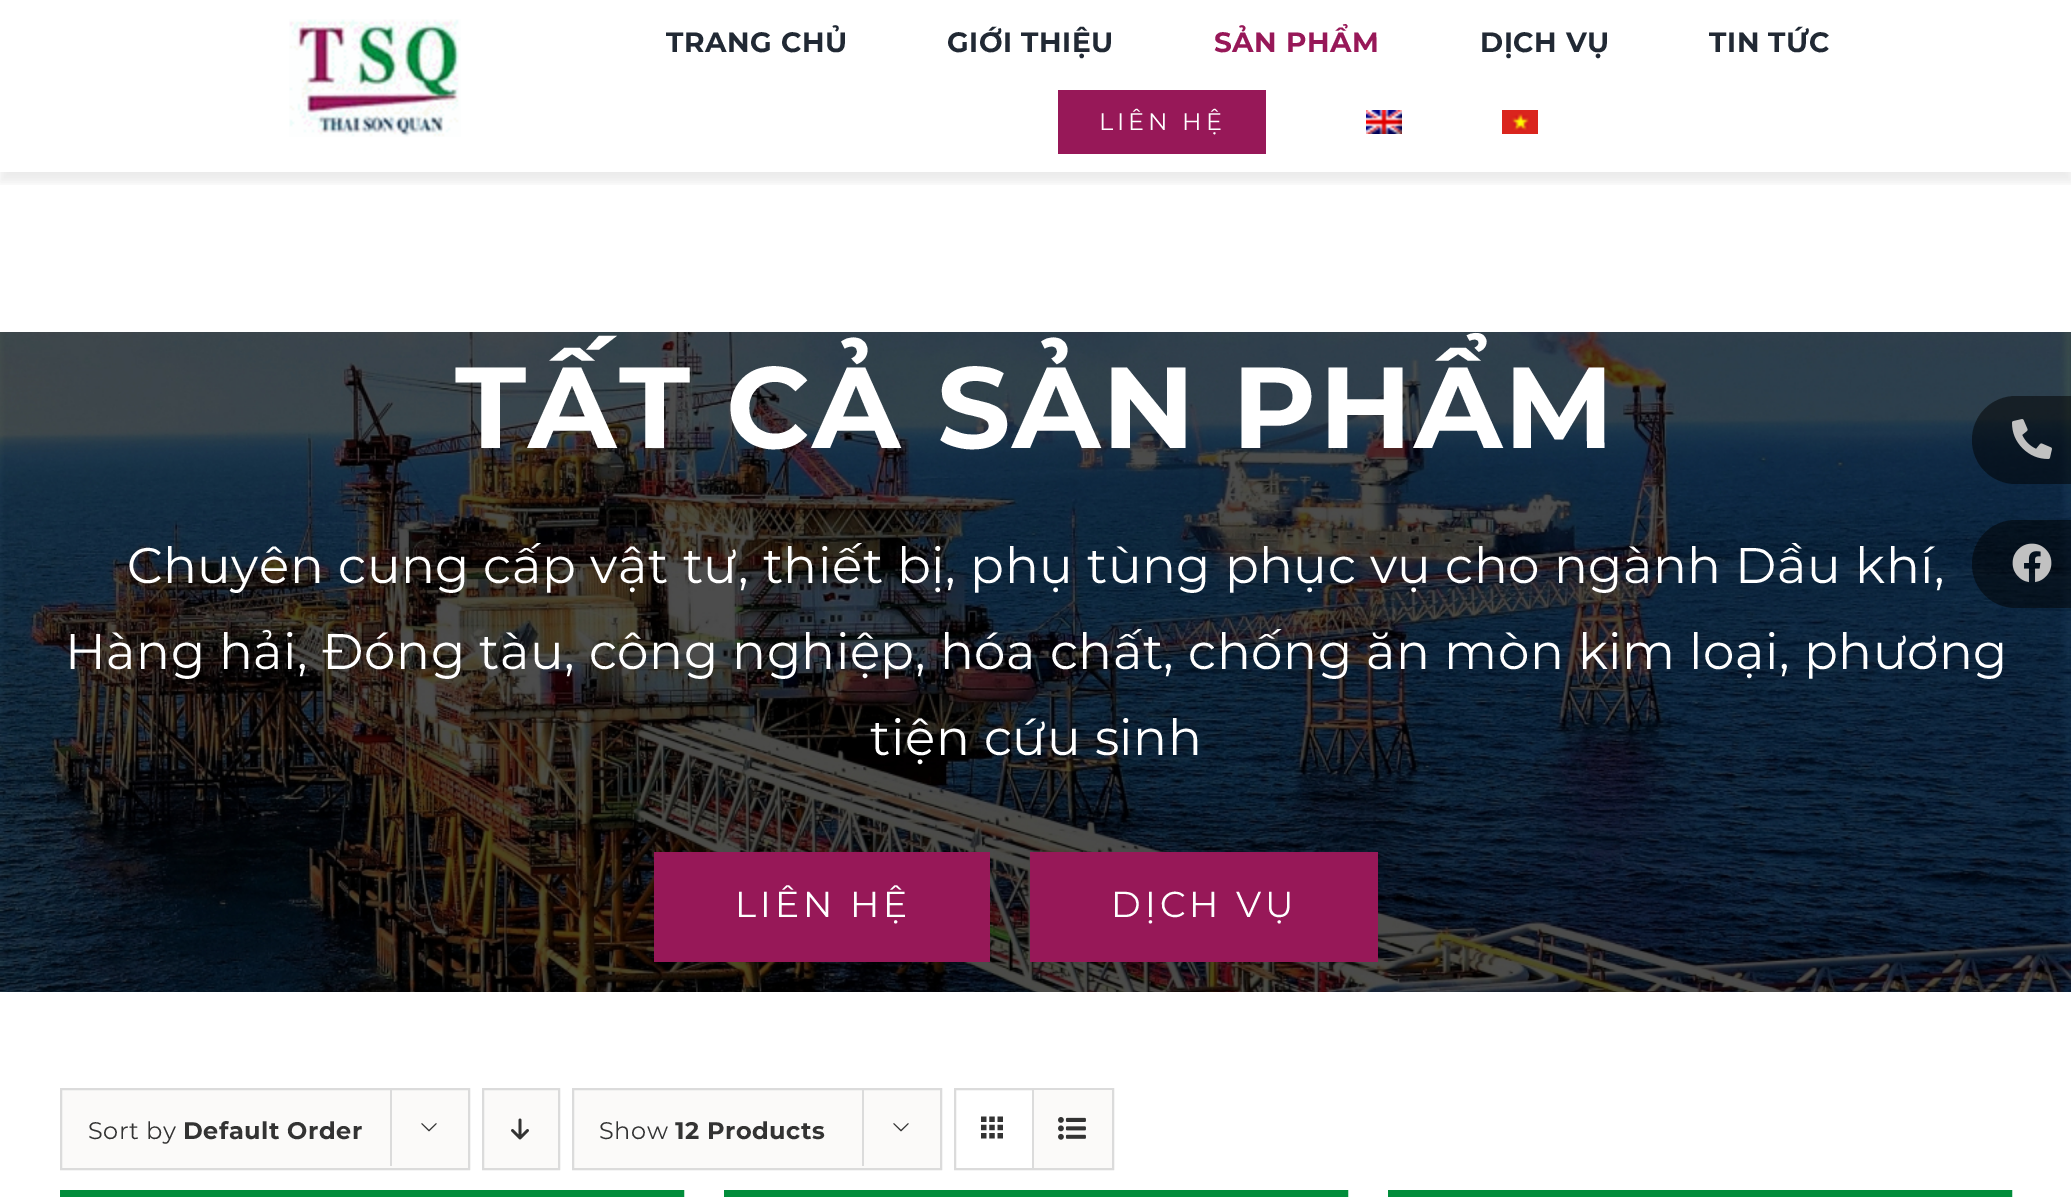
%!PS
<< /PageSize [2071 1197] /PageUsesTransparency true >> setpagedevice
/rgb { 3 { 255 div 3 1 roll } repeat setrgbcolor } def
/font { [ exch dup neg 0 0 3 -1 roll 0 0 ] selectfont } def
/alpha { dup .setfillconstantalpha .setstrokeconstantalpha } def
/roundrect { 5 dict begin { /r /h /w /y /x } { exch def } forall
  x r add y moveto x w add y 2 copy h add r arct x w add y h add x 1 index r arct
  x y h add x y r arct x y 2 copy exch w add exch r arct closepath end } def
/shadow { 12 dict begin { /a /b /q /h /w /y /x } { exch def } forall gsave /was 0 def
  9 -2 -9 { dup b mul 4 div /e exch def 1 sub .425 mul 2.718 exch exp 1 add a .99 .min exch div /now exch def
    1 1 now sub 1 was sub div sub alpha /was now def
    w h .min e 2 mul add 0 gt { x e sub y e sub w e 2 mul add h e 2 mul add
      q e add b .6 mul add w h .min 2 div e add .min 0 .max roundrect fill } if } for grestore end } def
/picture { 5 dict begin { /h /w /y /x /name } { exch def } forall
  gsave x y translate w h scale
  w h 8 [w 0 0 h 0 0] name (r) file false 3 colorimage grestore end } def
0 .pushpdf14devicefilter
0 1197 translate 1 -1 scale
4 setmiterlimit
255 255 255 rgb
0 0 2071 1197 rectfill
gsave
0 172 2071 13 rectclip
0 0 0 rgb
0 10 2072 172 0 5 0.07 shadow
grestore
(img_01.rgb) 289 19 172 118 picture
151 24 88 rgb
1058 90 208 64 rectfill
(img_02.rgb) 1366 110 36 24 picture
(img_03.rgb) 1502 110 36 24 picture
(img_04.rgb) 0 332 2071 660 picture
654 852 336 110 rectfill
1030 852 348 110 rectfill
251 250 249 rgb
61 1089 moveto 408 0 rlineto 0 80 rlineto -408 0 rlineto closepath gsave fill grestore
219 219 219 rgb
2 setlinewidth
stroke
390 1088 2 78 rectfill
(img_05.rgb) 421 1123 16 9 picture
251 250 249 rgb
483 1089 moveto 76 0 rlineto 0 80 rlineto -76 0 rlineto closepath gsave fill grestore
219 219 219 rgb
stroke
(img_06.rgb) 511 1118 18 22 picture
251 250 249 rgb
573 1089 moveto 368 0 rlineto 0 80 rlineto -368 0 rlineto closepath gsave fill grestore
219 219 219 rgb
stroke
862 1088 2 78 rectfill
(img_05.rgb) 893 1123 16 9 picture
955 1089 158 80 rectstroke
1032 1090 2 78 rectfill
(img_07.rgb) 981 1116 22 23 picture
251 250 249 rgb
1034 1090 78 78 rectfill
(img_08.rgb) 1058 1117 28 23 picture
1 141 59 rgb
10 setlinewidth
65 1195 614 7 rectstroke
729 1195 614 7 rectstroke
1393 1195 614 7 rectstroke
0.5 alpha
0 0 0 rgb
2016 396 moveto 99 0 rlineto 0 88 rlineto -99 0 rlineto -24.5 0 -44 -19.5 -44 -44 rcurveto 0 -24.5 19.5 -44 44 -44 rcurveto closepath fill
1 alpha
(img_09.rgb) 2012 419 40 40 picture
0.5 alpha
2016 520 moveto 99 0 rlineto 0 88 rlineto -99 0 rlineto -24.5 0 -44 -19.5 -44 -44 rcurveto 0 -24.5 19.5 -44 44 -44 rcurveto closepath fill
1 alpha
(img_10.rgb) 2012 543 40 40 picture
/Montserrat-Bold 28 font
33 41 52 rgb
666 52 moveto 0.55 0 (TRANG CHỦ) ashow
947 52 moveto 0.55 0 (GIỚI THIỆU) ashow
151 24 88 rgb
1214 52 moveto 0.55 0 (SẢN PHẨM) ashow
33 41 52 rgb
1480 52 moveto 0.55 0 (DỊCH VỤ) ashow
1709 52 moveto 0.55 0 (TIN TỨC) ashow
/Montserrat-Regular 24 font
255 255 255 rgb
1099 130 moveto 4 0 (LIÊN HỆ) ashow
/Montserrat-Bold 115.25 font
455 448 moveto 2 0 (TẤT CẢ SẢN PHẨM) ashow
/Montserrat-Regular 50 font
127 583 moveto 0.55 0 (Chuyên cung cấp vật tư, thiết bị, phụ tùng phục vụ cho ngành Dầu khí,) ashow
65 669 moveto 0.55 0 (Hàng hải, Đóng tàu, công nghiệp, hóa chất, chống ăn mòn kim loại, phương) ashow
870 755 moveto 0.55 0 (tiện cứu sinh) ashow
/Montserrat-Regular 36 font
735 917 moveto 4 0 (LIÊN HỆ) ashow
1111 917 moveto 4 0 (DỊCH VỤ) ashow
/Montserrat-Regular 24 font
51 51 51 rgb
88 1139 moveto 0.55 0 (Sort by) ashow
/Montserrat-Bold 24 font
183 1139 moveto 0.55 0 (Default Order) ashow
/Montserrat-Regular 24 font
599 1139 moveto 0.55 0 (Show) ashow
/Montserrat-Bold 24 font
675 1139 moveto 0.55 0 (12 Products) ashow
.poppdf14devicefilter showpage
